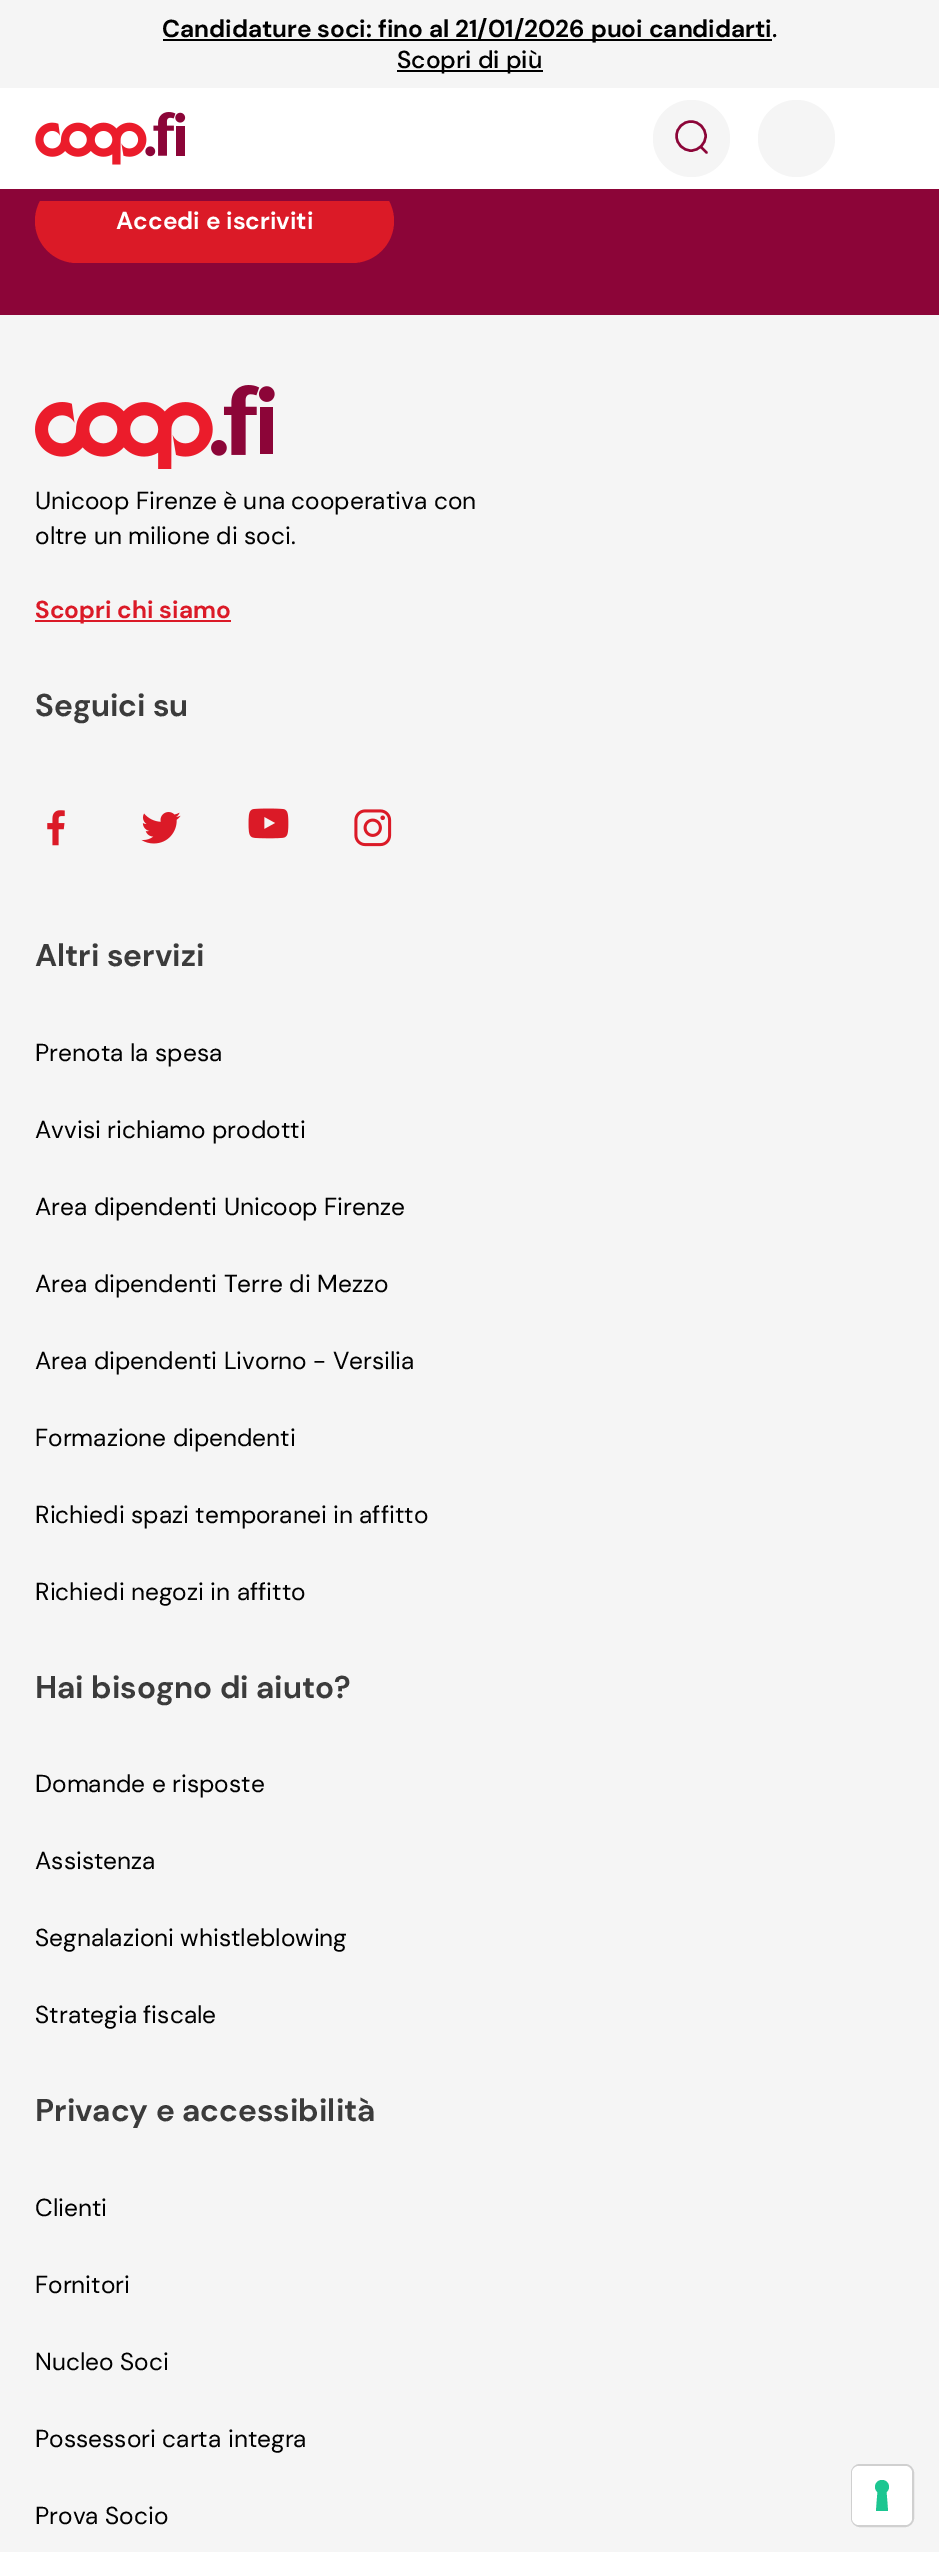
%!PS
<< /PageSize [939 2552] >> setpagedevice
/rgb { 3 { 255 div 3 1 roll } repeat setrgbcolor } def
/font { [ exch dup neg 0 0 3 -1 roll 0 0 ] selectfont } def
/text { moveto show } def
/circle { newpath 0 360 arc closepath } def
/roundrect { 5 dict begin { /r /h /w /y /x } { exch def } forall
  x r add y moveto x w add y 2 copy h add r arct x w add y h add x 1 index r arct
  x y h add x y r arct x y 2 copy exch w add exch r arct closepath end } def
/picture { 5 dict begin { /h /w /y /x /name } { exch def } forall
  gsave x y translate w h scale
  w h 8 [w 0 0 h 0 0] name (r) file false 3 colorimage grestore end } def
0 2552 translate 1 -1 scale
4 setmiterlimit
140 5 56 rgb
0 0 939 2552 rectfill
245 245 245 rgb
0 0 939 88 rectfill
0 0 0 rgb
163 39 609 2 rectfill
397 70 146 2 rectfill
219 26 39 rgb
35 179 359 84 42 roundrect fill
255 255 255 rgb
0 88 939 101 rectfill
140 5 56 rgb
40 189 349 12 rectfill
(img_01.rgb) 35 112 151 53 picture
245 245 245 rgb
691.5 138.5 38.5 circle fill
140 5 56 rgb
2.4 setlinewidth
691 136 14.5 circle stroke
1 setlinecap
1 setlinejoin
701 147 moveto 5.5 5.5 rlineto stroke
245 245 245 rgb
796.5 138.5 38.5 circle fill
0 315 939 2237 rectfill
(img_02.rgb) 35 385 240 84 picture
219 26 39 rgb
35 620 196 2 rectfill
(img_03.rgb) 47 810 18 36 picture
(img_04.rgb) 141 812 40 32 picture
(img_05.rgb) 248 808 41 31 picture
(img_06.rgb) 354 809 38 38 picture
208 208 208 rgb
2 setlinewidth
0 setlinecap
0 setlinejoin
852 2465 61 61 8 roundrect stroke
255 255 255 rgb
852 2466 60 59 7 roundrect fill
28 198 145 rgb
882 2480 moveto 6.5 0 9.5 8 4.5 12 rcurveto 1.5 19 rlineto -12 0 rlineto 1.5 -19 rlineto -5 -4 -2 -12 4.5 -12 rcurveto closepath eofill
/DMSans-Bold 24.5 font
0 0 0 rgb
(Candidature soci: fino al 21/01/2026 puoi candidarti) 162 37 text
/DMSans-Medium 24.5 font
(.) 772 37 text
(Scopri di più) 397 68 text
/DMSans-Bold 24.5 font
255 255 255 rgb
(Accedi e iscriviti) 116 229 text
/DMSans-Regular 24.5 font
0 0 0 rgb
(Unicoop Firenze è una cooperativa con) 35 509 text
(oltre un milione di soci.) 35 544 text
/DMSans-Bold 24.5 font
219 26 39 rgb
(Scopri chi siamo) 35 618 text
/DMSans-Bold 31.5 font
59 59 59 rgb
(Seguici su) 35 716 text
(Altri servizi) 35 966 text
/DMSans-Regular 24.5 font
0 0 0 rgb
(Prenota la spesa) 35 1061 text
(Avvisi richiamo prodotti) 35 1138 text
(Area dipendenti Unicoop Firenze) 35 1215 text
(Area dipendenti Terre di Mezzo) 35 1292 text
(Area dipendenti Livorno - Versilia) 35 1369 text
(Formazione dipendenti) 35 1446 text
(Richiedi spazi temporanei in affitto) 35 1523 text
(Richiedi negozi in affitto) 35 1600 text
/DMSans-Bold 31.5 font
59 59 59 rgb
(Hai bisogno di aiuto?) 35 1698 text
/DMSans-Regular 24.5 font
0 0 0 rgb
(Domande e risposte) 35 1792 text
(Assistenza) 35 1869 text
(Segnalazioni whistleblowing) 35 1946 text
(Strategia fiscale) 35 2023 text
/DMSans-Bold 31.5 font
59 59 59 rgb
(Privacy e accessibilità) 35 2121 text
/DMSans-Regular 24.5 font
0 0 0 rgb
(Clienti) 35 2216 text
(Fornitori) 35 2293 text
(Nucleo Soci) 35 2370 text
(Possessori carta integra) 35 2447 text
(Prova Socio) 35 2524 text
showpage
